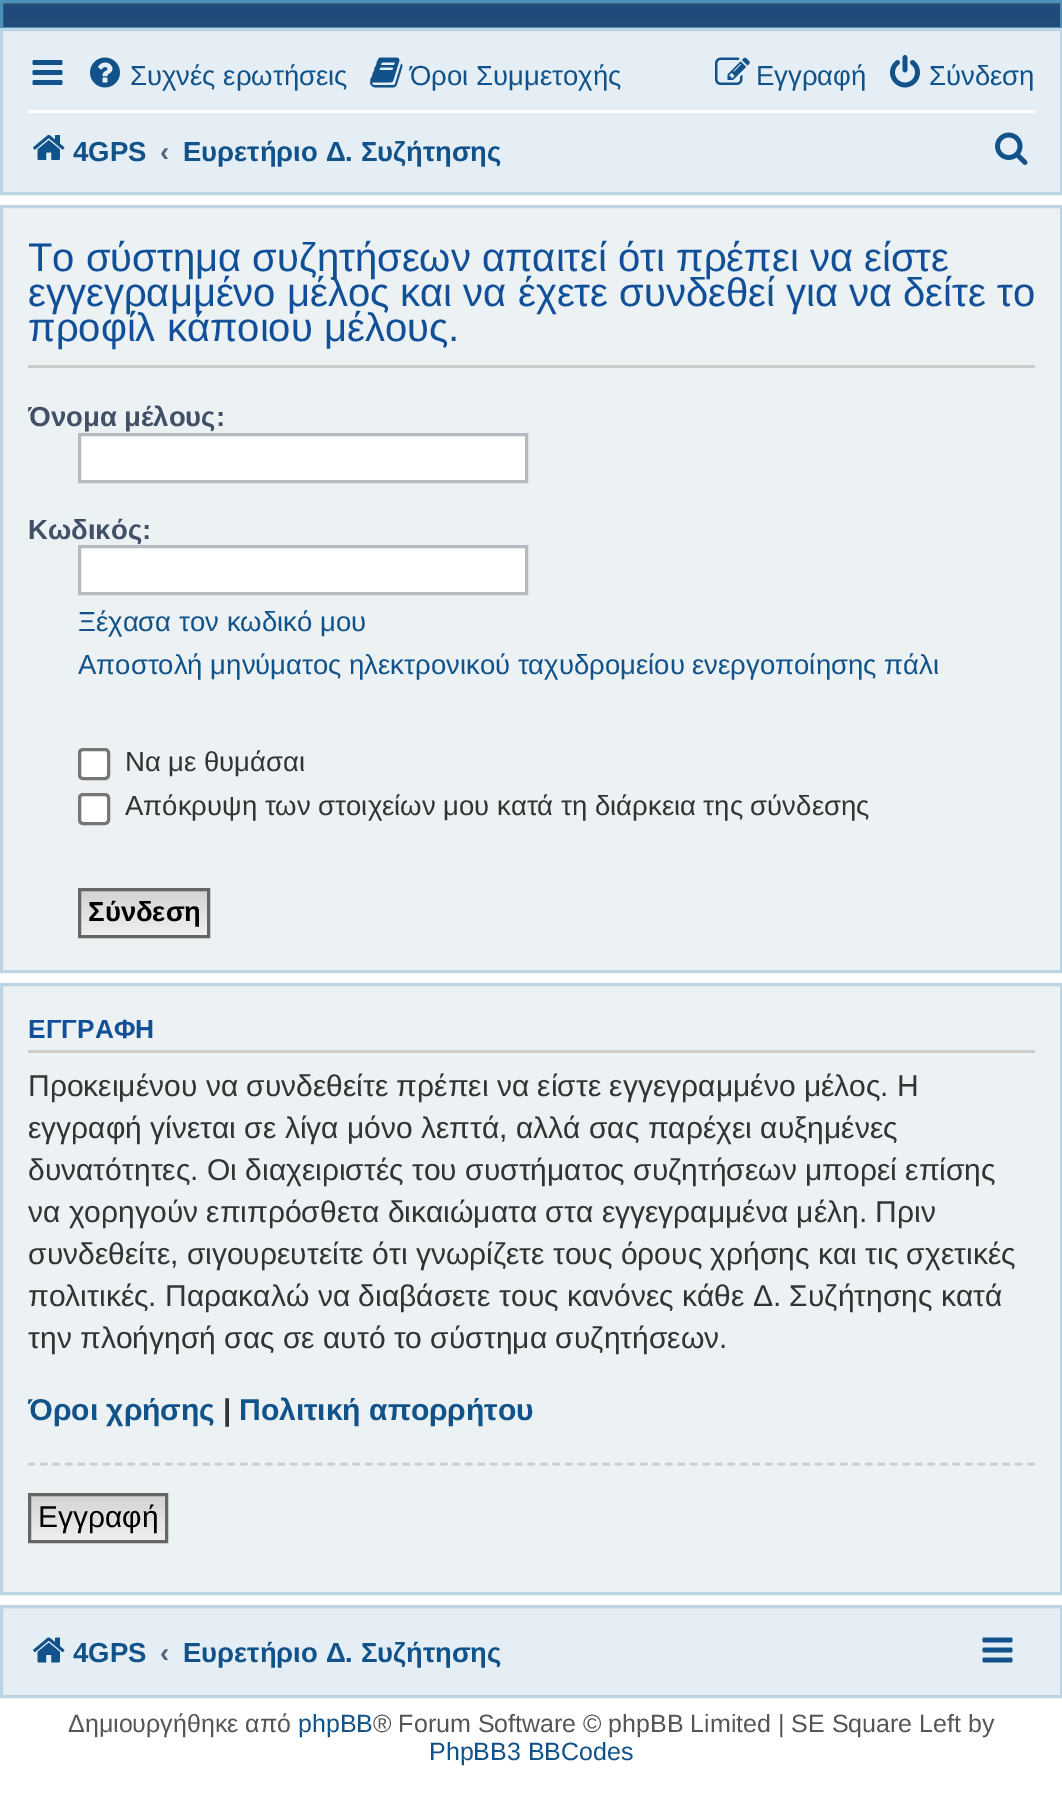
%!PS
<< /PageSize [1062 1798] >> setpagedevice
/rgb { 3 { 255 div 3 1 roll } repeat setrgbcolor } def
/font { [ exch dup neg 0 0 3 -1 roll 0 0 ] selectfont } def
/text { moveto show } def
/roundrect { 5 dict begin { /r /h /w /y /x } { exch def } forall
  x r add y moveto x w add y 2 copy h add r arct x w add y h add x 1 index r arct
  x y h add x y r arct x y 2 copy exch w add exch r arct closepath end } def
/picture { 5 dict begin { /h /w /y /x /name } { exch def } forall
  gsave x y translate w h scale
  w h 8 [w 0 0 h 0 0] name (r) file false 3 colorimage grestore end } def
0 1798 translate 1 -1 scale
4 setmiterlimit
255 255 255 rgb
0 0 1062 1798 rectfill
gsave 3 3 moveto 1057 0 rlineto 0 24 rlineto -1057 0 rlineto closepath clip newpath
<< /ShadingType 2 /ColorSpace /DeviceRGB /Coords [531 2.5 531 232] /Extend [true true] /Function << /FunctionType 3 /Domain [0 1] /Functions [<< /FunctionType 2 /Domain [0 1] /C0 [0.192 0.322 0.459] /C1 [0.122 0.29 0.478] /N 1 >> << /FunctionType 2 /Domain [0 1] /C0 [0.122 0.29 0.478] /C1 [0.259 0.353 0.459] /N 1 >>] /Bounds [0.02] /Encode [0 1 0 1] >> >> shfill grestore
79 145 182 rgb
3 setlinewidth
1.5 1.5 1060 27 rectstroke
229 238 245 rgb
1.5 29.5 moveto 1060 0 rlineto 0 164 rlineto -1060 0 rlineto closepath gsave fill grestore
188 212 227 rgb
stroke
(img_01.rgb) 32 60 31 25 picture
(img_02.rgb) 90 57 30 31 picture
(img_03.rgb) 370 57 33 31 picture
(img_04.rgb) 715 57 35 28 picture
(img_05.rgb) 890 55 30 33 picture
255 255 255 rgb
28 110 1007 3 rectfill
(img_06.rgb) 33 134 32 26 picture
(img_07.rgb) 995 132 33 33 picture
236 241 243 rgb
1.5 206.5 moveto 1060 0 rlineto 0 765 rlineto -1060 0 rlineto closepath gsave fill grestore
188 212 227 rgb
stroke
204 204 204 rgb
28 365 1007 3 rectfill
255 255 255 rgb
79.5 434.5 moveto 447 0 rlineto 0 47 rlineto -447 0 rlineto closepath gsave fill grestore
180 186 192 rgb
stroke
255 255 255 rgb
79.5 546.5 moveto 447 0 rlineto 0 47 rlineto -447 0 rlineto closepath gsave fill grestore
180 186 192 rgb
stroke
255 255 255 rgb
79.5 749.5 29 29 3.5 roundrect gsave fill grestore
118 118 118 rgb
stroke
255 255 255 rgb
79.5 794.5 29 29 3.5 roundrect gsave fill grestore
118 118 118 rgb
stroke
gsave 81 891 moveto 126 0 rlineto 0 44 rlineto -126 0 rlineto closepath clip newpath
<< /ShadingType 2 /ColorSpace /DeviceRGB /Coords [144 890 144 935] /Extend [true true] /Function << /FunctionType 2 /Domain [0 1] /C0 [0.824 0.824 0.824] /C1 [0.937 0.937 0.937] /N 1 >> >> shfill grestore
102 102 102 rgb
79.5 889.5 129 47 rectstroke
236 241 243 rgb
1.5 984.5 moveto 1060 0 rlineto 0 609 rlineto -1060 0 rlineto closepath gsave fill grestore
188 212 227 rgb
stroke
204 204 204 rgb
28 1050 1007 3 rectfill
gsave
28 998 1007 582 rectclip
2.5 setlinewidth
[7.5 5] 0 setdash
27.5 1464 moveto 1007.5 0 rlineto stroke
grestore
gsave 31 1496 moveto 134 0 rlineto 0 44 rlineto -134 0 rlineto closepath clip newpath
<< /ShadingType 2 /ColorSpace /DeviceRGB /Coords [98 1495 98 1540] /Extend [true true] /Function << /FunctionType 2 /Domain [0 1] /C0 [0.824 0.824 0.824] /C1 [0.937 0.937 0.937] /N 1 >> >> shfill grestore
102 102 102 rgb
29.5 1494.5 137 47 rectstroke
229 238 245 rgb
1.5 1606.5 moveto 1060 0 rlineto 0 90 rlineto -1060 0 rlineto closepath gsave fill grestore
188 212 227 rgb
stroke
(img_08.rgb) 33 1637 32 26 picture
(img_09.rgb) 982 1637 31 26 picture
/LiberationSans-Regular 27.5 font
16 82 137 rgb
(Συχνές ερωτήσεις) 130 85 text
(Όροι Συμμετοχής) 410 85 text
(Εγγραφή) 756 85 text
(Σύνδεση) 929 85 text
/LiberationSans-Bold 27.5 font
(4GPS) 73 161 text
83 100 130 rgb
(‹) 160 161 text
16 82 137 rgb
(Ευρετήριο Δ. Συζήτησης) 183 161 text
/LiberationSans-Regular 40 font
17 80 152 rgb
(Το σύστημα συζητήσεων απαιτεί ότι πρέπει να είστε) 28 271 text
(εγγεγραμμένο μέλος και να έχετε συνδεθεί για να δείτε το) 28 306 text
(προφίλ κάποιου μέλους.) 28 341 text
gsave
28 388 1007 112 rectclip
/LiberationSans-Bold 27.5 font
66 80 103 rgb
(Όνομα μέλους:) 28 426 text
grestore
/LiberationSans-Bold 27.5 font
66 80 103 rgb
(Κωδικός:) 28 539 text
/LiberationSans-Regular 27.5 font
16 82 137 rgb
(Ξέχασα τον κωδικό μου) 78 631 text
(Αποστολή μηνύματος ηλεκτρονικού ταχυδρομείου ενεργοποίησης πάλι) 78 674 text
51 51 51 rgb
(Να με θυμάσαι) 125 771 text
(Απόκρυψη των στοιχείων μου κατά τη διάρκεια της σύνδεσης) 125 815 text
/LiberationSans-Bold 27.5 font
0 0 0 rgb
(Σύνδεση) 88 921 text
/LiberationSans-Bold 26.25 font
17 80 152 rgb
(ΕΓΓΡΑΦΗ) 28 1038 text
/LiberationSans-Regular 30 font
51 51 51 rgb
(Προκειμένου να συνδεθείτε πρέπει να είστε εγγεγραμμένο μέλος. Η) 28 1096 text
(εγγραφή γίνεται σε λίγα μόνο λεπτά, αλλά σας παρέχει αυξημένες) 28 1138 text
(δυνατότητες. Οι διαχειριστές του συστήματος συζητήσεων μπορεί επίσης) 28 1180 text
(να χορηγούν επιπρόσθετα δικαιώματα στα εγγεγραμμένα μέλη. Πριν) 28 1222 text
(συνδεθείτε, σιγουρευτείτε ότι γνωρίζετε τους όρους χρήσης και τις σχετικές) 28 1264 text
(πολιτικές. Παρακαλώ να διαβάσετε τους κανόνες κάθε Δ. Συζήτησης κατά) 28 1306 text
(την πλοήγησή σας σε αυτό το σύστημα συζητήσεων.) 28 1348 text
gsave
28 1390 1007 43 rectclip
/LiberationSans-Bold 30 font
16 82 137 rgb
(Όροι χρήσης) 28 1420 text
grestore
/LiberationSans-Bold 30 font
(|) 223 1420 text
16 82 137 rgb
(Πολιτική απορρήτου) 239 1420 text
/LiberationSans-Regular 30 font
0 0 0 rgb
(Εγγραφή) 38 1527 text
/LiberationSans-Bold 27.5 font
16 82 137 rgb
(4GPS) 73 1662 text
83 100 130 rgb
(‹) 160 1662 text
16 82 137 rgb
(Ευρετήριο Δ. Συζήτησης) 183 1662 text
/LiberationSans-Regular 25 font
85 85 85 rgb
(Δημιουργήθηκε από) 68 1732 text
16 82 137 rgb
(phpBB) 298 1732 text
85 85 85 rgb
(® Forum Software © phpBB Limited | SE Square Left by) 373 1732 text
16 82 137 rgb
(PhpBB3 BBCodes) 429 1760 text
showpage
